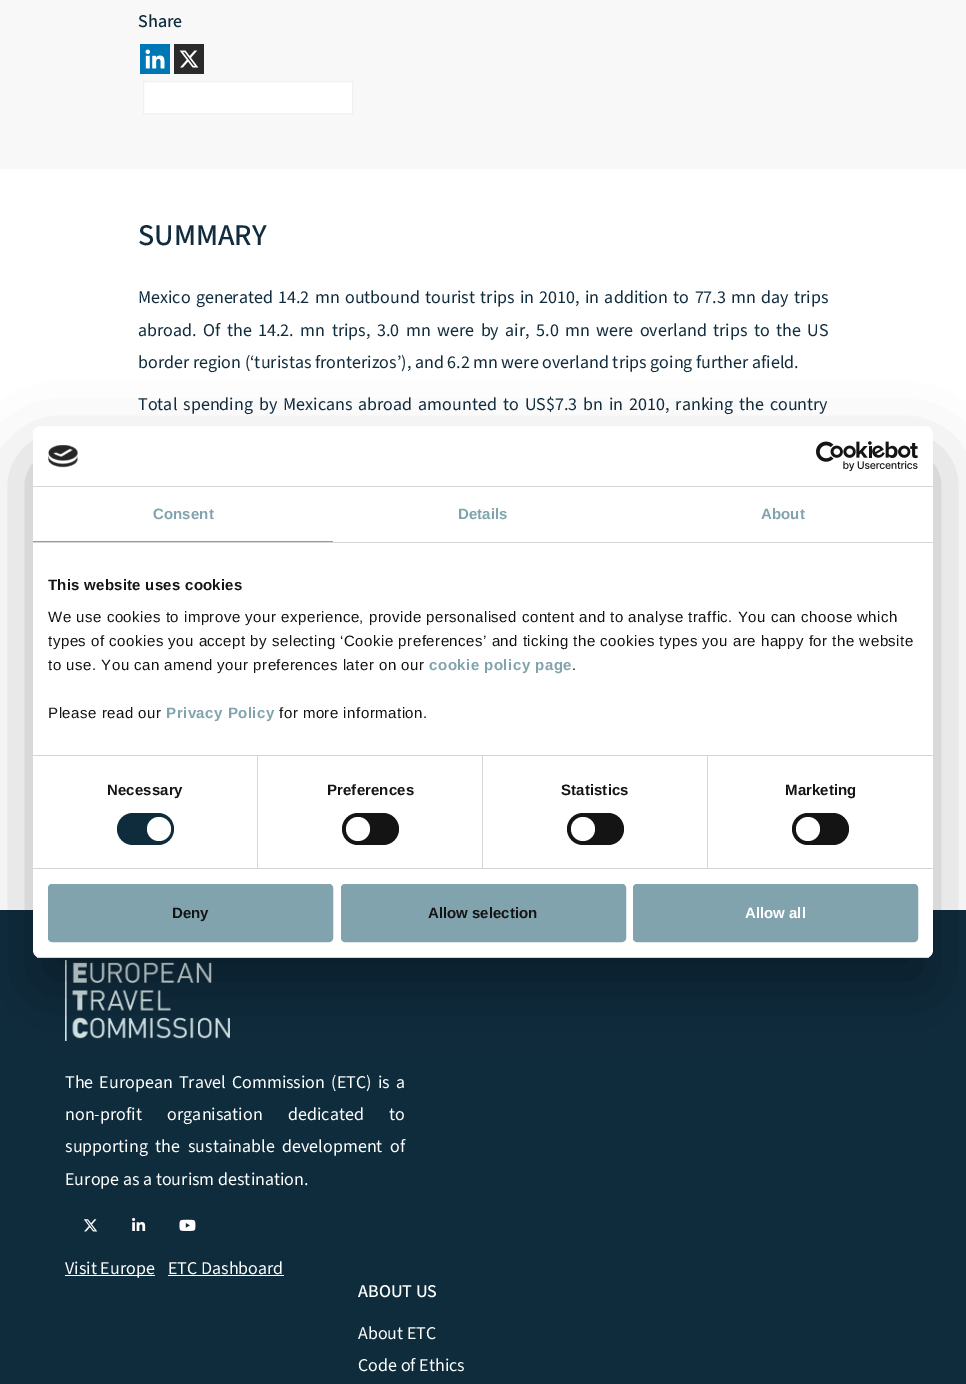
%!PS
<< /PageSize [966 1384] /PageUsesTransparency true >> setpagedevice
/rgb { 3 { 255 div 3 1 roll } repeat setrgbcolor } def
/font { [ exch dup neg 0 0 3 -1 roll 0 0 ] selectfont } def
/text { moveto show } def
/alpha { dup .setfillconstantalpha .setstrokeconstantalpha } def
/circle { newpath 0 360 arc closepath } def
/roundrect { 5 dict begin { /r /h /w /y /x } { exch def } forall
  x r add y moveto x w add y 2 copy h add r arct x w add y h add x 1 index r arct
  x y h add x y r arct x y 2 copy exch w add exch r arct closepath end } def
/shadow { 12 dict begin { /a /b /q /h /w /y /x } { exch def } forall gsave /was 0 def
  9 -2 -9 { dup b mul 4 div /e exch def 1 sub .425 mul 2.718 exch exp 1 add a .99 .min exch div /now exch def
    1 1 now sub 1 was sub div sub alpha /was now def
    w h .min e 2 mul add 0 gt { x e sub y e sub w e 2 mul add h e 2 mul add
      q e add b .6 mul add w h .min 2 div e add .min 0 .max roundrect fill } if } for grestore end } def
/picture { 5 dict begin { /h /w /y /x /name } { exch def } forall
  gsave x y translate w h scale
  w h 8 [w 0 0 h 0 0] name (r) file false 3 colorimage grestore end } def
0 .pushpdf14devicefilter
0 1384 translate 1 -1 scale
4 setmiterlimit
255 255 255 rgb
0 0 966 1384 rectfill
248 248 248 rgb
0 0 966 169 rectfill
0 119 181 rgb
140 44 30 30 rectfill
(img_01.rgb) 145 49 20 20 picture
42 42 42 rgb
174 44 30 30 rectfill
(img_02.rgb) 179 50 20 18 picture
255 255 255 rgb
143.5 81.5 moveto 209 0 rlineto 0 32 rlineto -209 0 rlineto closepath gsave fill grestore
240 240 240 rgb
stroke
15 44 61 rgb
0 910 966 474 rectfill
(img_05.rgb) 65 960 165 81 picture
0 0 0 rgb
33 458 900 532 8 34 0.3 shadow
255 255 255 rgb
33 426 900 532 8 roundrect fill
214 214 214 rgb
33 486 900 1 rectfill
(img_03.rgb) 48 445 30 23 picture
(img_04.rgb) 816 441 102 30 picture
33 542 900 1 rectfill
128 163 173 rgb
33 541 300 1 rectfill
214 214 214 rgb
33 755 900 1 rectfill
33 868 900 1 rectfill
257 756 1 112 rectfill
15 44 61 rgb
117 813 57 32 16 roundrect fill
255 255 255 rgb
159 829 12 circle fill
214 214 214 rgb
482 756 1 112 rectfill
20 20 20 rgb
342 813 57 32 16 roundrect fill
255 255 255 rgb
358 829 12 circle fill
214 214 214 rgb
707 756 1 112 rectfill
20 20 20 rgb
567 813 57 32 16 roundrect fill
255 255 255 rgb
583 829 12 circle fill
20 20 20 rgb
792 813 57 32 16 roundrect fill
255 255 255 rgb
808 829 12 circle fill
gsave
33 426 900 532 8 roundrect clip newpath
214 214 214 rgb
33 957 900 1 rectfill
grestore
128 163 173 rgb
49 885 283 56 3 roundrect gsave fill grestore
2 setlinewidth
stroke
342 885 283 56 3 roundrect gsave fill grestore
stroke
634 885 283 56 3 roundrect gsave fill grestore
stroke
(img_06.rgb) 83 1219 15 13 picture
(img_07.rgb) 132 1217 14 14 picture
(img_08.rgb) 179 1219 17 12 picture
255 255 255 rgb
65 1275 90 1 rectfill
168 1275 116 1 rectfill
/SourceSans3-Medium 18 font
16 44 61 rgb
(Share) 138 27 text
/SourceSans3-Medium 30 font
(SUMMARY) 138 245 text
/SourceSans3-Regular 18 font
138 303 moveto 1.7 0 32 (Mexico generated 14.2 mn outbound tourist trips in 2010, in addition to 77.3 mn day trips) widthshow
138 336 moveto 2.9 0 32 (abroad. Of the 14.2. mn trips, 3.0 mn were by air, 5.0 mn were overland trips to the US) widthshow
(border region \(‘turistas fronterizos’\), and 6.2 mn were overland trips going further afield.) 138 368 text
138 410 moveto 2.4 0 32 (Total spending by Mexicans abroad amounted to US$7.3 bn in 2010, ranking the country) widthshow
/LiberationSans-Bold 15 font
128 163 173 rgb
153 519 moveto 0.1 0 (Consent) ashow
458 519 moveto 0.1 0 (Details) ashow
761 519 moveto 0.1 0 (About) ashow
20 20 20 rgb
48 590 moveto 0.25 0 (This website uses cookies) ashow
/LiberationSans-Regular 15 font
48 622 moveto 0.5 0 (We use cookies to improve your experience, provide personalised content and to analyse traffic. You can choose which) ashow
48 646 moveto 0.5 0 (types of cookies you accept by selecting ‘Cookie preferences’ and ticking the cookies types you are happy for the website) ashow
48 670 moveto 0.5 0 (to use. You can amend your preferences later on our) ashow
/LiberationSans-Bold 15 font
128 163 173 rgb
429 670 moveto 0.5 0 (cookie policy page) ashow
/LiberationSans-Regular 15 font
20 20 20 rgb
572 670 moveto 0.5 0 (.) ashow
48 718 moveto 0.5 0 (Please read our) ashow
/LiberationSans-Bold 15 font
128 163 173 rgb
166 718 moveto 0.5 0 (Privacy Policy) ashow
/LiberationSans-Regular 15 font
20 20 20 rgb
279 718 moveto 0.5 0 (for more information.) ashow
/LiberationSans-Bold 15 font
107 795 moveto 0.1 0 (Necessary) ashow
327 795 moveto 0.1 0 (Preferences) ashow
561 795 moveto 0.1 0 (Statistics) ashow
785 795 moveto 0.1 0 (Marketing) ashow
(Deny) 172 918 text
(Allow selection) 428 918 text
255 255 255 rgb
(Allow all) 745 918 text
/SourceSans3-Regular 18 font
65 1088 moveto 2.5 0 32 (The European Travel Commission \(ETC\) is a) widthshow
65 1120 moveto 22 0 32 (non-profit organisation dedicated to) widthshow
65 1152 moveto 4 0 32 (supporting the sustainable development of) widthshow
(Europe as a tourism destination.) 65 1185 text
(Visit Europe) 65 1274 text
(ETC Dashboard) 168 1274 text
/SourceSans3-Medium 18 font
(ABOUT US) 358 1297 text
/SourceSans3-Regular 18 font
(About ETC) 358 1339 text
(Code of Ethics) 358 1371 text
.poppdf14devicefilter showpage
